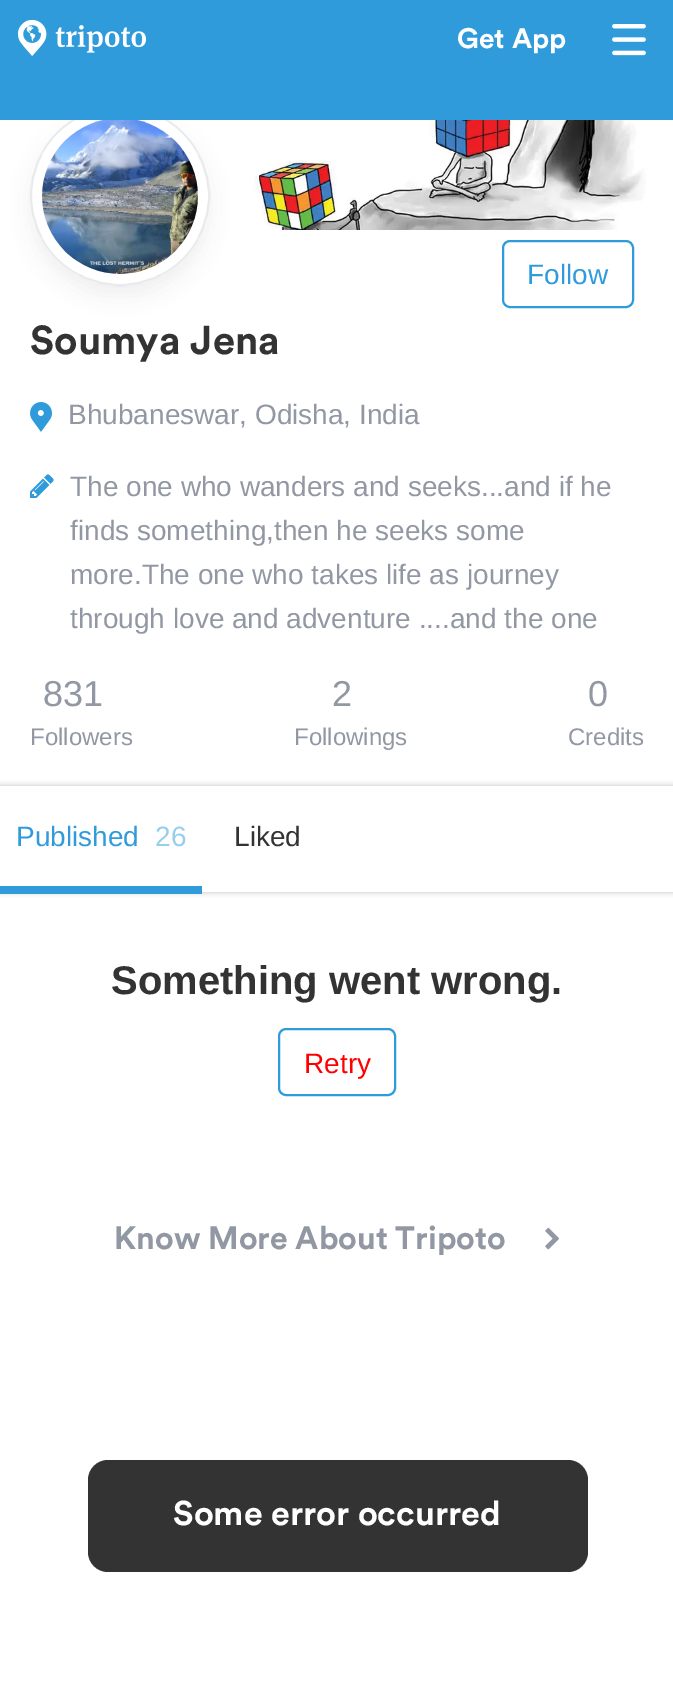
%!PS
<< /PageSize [673 1687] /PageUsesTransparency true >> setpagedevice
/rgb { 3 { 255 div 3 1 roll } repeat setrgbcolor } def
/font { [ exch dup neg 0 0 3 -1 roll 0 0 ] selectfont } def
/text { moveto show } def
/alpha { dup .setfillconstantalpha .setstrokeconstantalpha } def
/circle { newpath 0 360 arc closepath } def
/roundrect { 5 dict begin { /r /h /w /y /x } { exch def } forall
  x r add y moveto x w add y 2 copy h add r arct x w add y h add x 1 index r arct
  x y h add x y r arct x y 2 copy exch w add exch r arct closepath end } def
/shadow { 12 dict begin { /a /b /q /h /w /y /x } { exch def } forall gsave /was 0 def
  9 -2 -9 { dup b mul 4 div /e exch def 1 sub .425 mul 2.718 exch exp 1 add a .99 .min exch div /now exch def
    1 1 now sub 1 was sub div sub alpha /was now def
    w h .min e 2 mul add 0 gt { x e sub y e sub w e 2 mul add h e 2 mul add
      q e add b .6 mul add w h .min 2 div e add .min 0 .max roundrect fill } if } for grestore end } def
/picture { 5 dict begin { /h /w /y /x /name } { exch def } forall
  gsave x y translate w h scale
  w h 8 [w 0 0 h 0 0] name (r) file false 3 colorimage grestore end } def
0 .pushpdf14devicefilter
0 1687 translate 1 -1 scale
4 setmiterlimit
255 255 255 rgb
0 0 673 1687 rectfill
(img_03.rgb) 0 120 673 110 picture
221 221 221 rgb
30 116 180 180 90 10 0.5 shadow
255 255 255 rgb
120 196 90 circle fill
0.2 alpha
145 151 163 rgb
2 setlinewidth
120 196 89 circle stroke
1 alpha
47 155 219 rgb
0 0 673 120 rectfill
(img_01.rgb) 18 19 128 37 picture
(img_02.rgb) 612 24 34 32 picture
(img_04.rgb) 42 120 156 154 picture
503 241 130 66 7 roundrect stroke
(img_05.rgb) 30 402 22 30 picture
(img_06.rgb) 30 474 24 24 picture
gsave
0 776 moveto 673 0 rlineto 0 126 rlineto -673 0 rlineto closepath 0 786 moveto 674 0 rlineto 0 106 rlineto -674 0 rlineto closepath eoclip newpath
0 0 0 rgb
0 786 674 106 0 3 0.25 shadow
grestore
0 886 202 8 rectfill
279 1029 116 66 7 roundrect stroke
(img_07.rgb) 545 1227 14 23 picture
51 51 51 rgb
88 1460 500 112 20 roundrect fill
/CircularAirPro-Bold 28 font
255 255 255 rgb
(Get App) 457 48 text
/LiberationSans-Regular 28 font
47 155 219 rgb
(Follow) 527 284 text
/CircularAirPro-Bold 40 font
51 51 51 rgb
(Soumya Jena) 30 354 text
/LiberationSans-Regular 28 font
145 151 163 rgb
(Bhubaneswar, Odisha, India) 68 424 text
(The one who wanders and seeks...and if he) 70 496 text
(finds something,then he seeks some) 70 540 text
(more.The one who takes life as journey) 70 584 text
(through love and adventure ....and the one) 70 628 text
/LiberationSans-Regular 36 font
(831) 43 706 text
/LiberationSans-Regular 24 font
(Followers) 30 745 text
/LiberationSans-Regular 36 font
(2) 332 706 text
/LiberationSans-Regular 24 font
(Followings) 294 745 text
/LiberationSans-Regular 36 font
(0) 588 706 text
/LiberationSans-Regular 24 font
(Credits) 568 745 text
/LiberationSans-Regular 28 font
47 155 219 rgb
(Published) 16 846 text
151 205 237 rgb
(26) 155 846 text
51 51 51 rgb
(Liked) 234 846 text
/LiberationSans-Bold 40 font
(Something went wrong.) 111 994 text
/LiberationSans-Regular 28 font
255 0 0 rgb
(Retry) 304 1073 text
/CircularAirPro-Bold 32 font
145 151 163 rgb
(Know More About Tripoto) 114 1249 text
/CircularAirPro-Bold 34 font
255 255 255 rgb
(Some error occurred) 173 1525 text
.poppdf14devicefilter showpage
